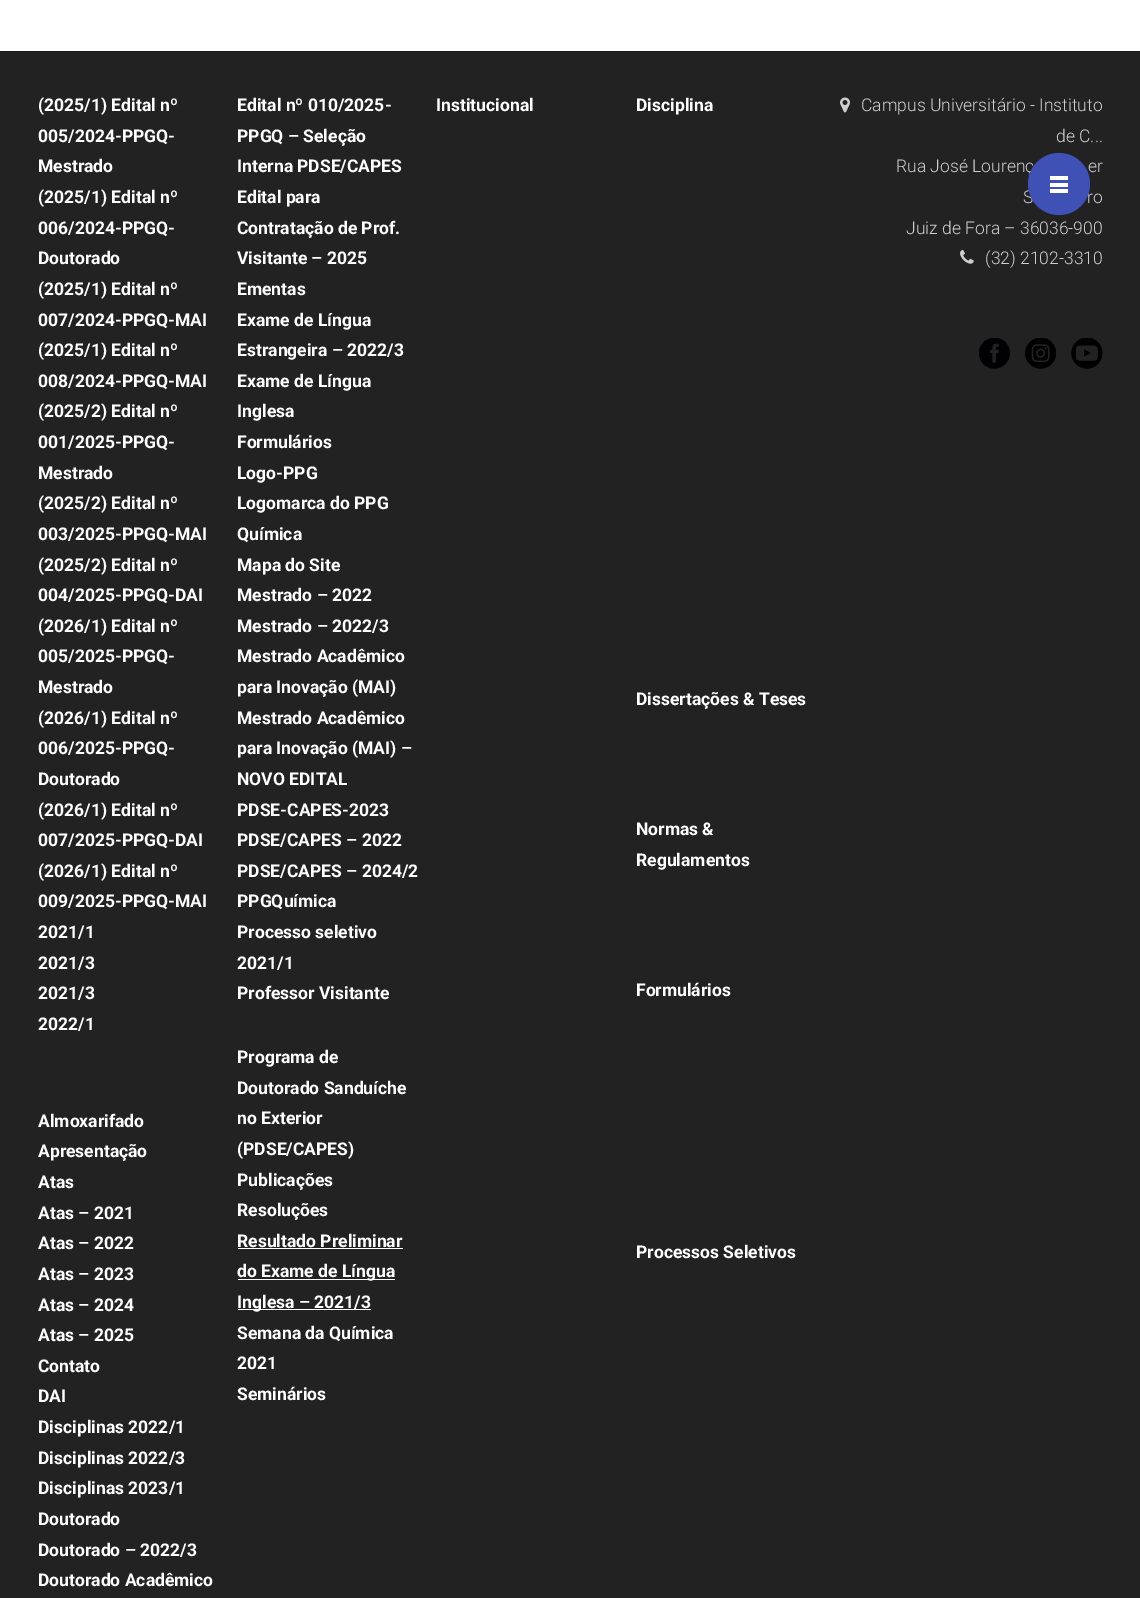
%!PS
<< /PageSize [1140 1598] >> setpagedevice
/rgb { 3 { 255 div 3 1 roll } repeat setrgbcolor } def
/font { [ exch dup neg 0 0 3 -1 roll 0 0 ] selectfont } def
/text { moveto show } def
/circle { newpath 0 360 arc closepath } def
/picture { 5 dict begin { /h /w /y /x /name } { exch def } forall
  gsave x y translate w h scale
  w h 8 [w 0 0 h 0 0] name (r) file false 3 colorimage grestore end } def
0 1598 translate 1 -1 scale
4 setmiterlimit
255 255 255 rgb
0 0 1140 1598 rectfill
34 34 34 rgb
0 52 1140 1546 rectfill
27 27 27 rgb
0 51 1140 1 rectfill
255 255 255 rgb
238 1248 165 1 rectfill
238 1279 157 1 rectfill
238 1309 133 1 rectfill
(img_01.rgb) 840 97 10 16 picture
(img_02.rgb) 960 250 14 14 picture
(img_03.rgb) 979 338 31 31 picture
(img_04.rgb) 1025 338 31 31 picture
(img_05.rgb) 1071 338 32 31 picture
/Roboto-Bold 17.5 font
(\(2025/1\) Edital nº) 38 111 text
(005/2024-PPGQ-) 38 142 text
(Mestrado) 38 172 text
(Edital nº 010/2025-) 237 111 text
(PPGQ – Seleção) 237 142 text
(Interna PDSE/CAPES) 237 172 text
(Institucional) 436 111 text
(Disciplina) 636 111 text
(\(2025/1\) Edital nº) 38 203 text
(006/2024-PPGQ-) 38 234 text
(Doutorado) 38 264 text
(Edital para) 237 203 text
(Contratação de Prof.) 237 234 text
(Visitante – 2025) 237 264 text
(\(2025/1\) Edital nº) 38 295 text
(007/2024-PPGQ-MAI) 38 326 text
(Ementas) 237 295 text
(Exame de Língua) 237 326 text
(Estrangeira – 2022/3) 237 356 text
(\(2025/1\) Edital nº) 38 356 text
(008/2024-PPGQ-MAI) 38 387 text
(Exame de Língua) 237 387 text
(Inglesa) 237 417 text
(\(2025/2\) Edital nº) 38 417 text
(001/2025-PPGQ-) 38 448 text
(Mestrado) 38 479 text
(Formulários) 237 448 text
(Logo-PPG) 237 479 text
(\(2025/2\) Edital nº) 38 509 text
(003/2025-PPGQ-MAI) 38 540 text
(Logomarca do PPG) 237 509 text
(Química) 237 540 text
(\(2025/2\) Edital nº) 38 571 text
(004/2025-PPGQ-DAI) 38 601 text
(Mapa do Site) 237 571 text
(Mestrado – 2022) 237 601 text
(\(2026/1\) Edital nº) 38 632 text
(005/2025-PPGQ-) 38 662 text
(Mestrado) 38 693 text
(Mestrado – 2022/3) 237 632 text
(Mestrado Acadêmico) 237 662 text
(para Inovação \(MAI\)) 237 693 text
(Dissertações & Teses) 636 705 text
(\(2026/1\) Edital nº) 38 724 text
(006/2025-PPGQ-) 38 754 text
(Doutorado) 38 785 text
(Mestrado Acadêmico) 237 724 text
(para Inovação \(MAI\) –) 237 754 text
(NOVO EDITAL) 237 785 text
(\(2026/1\) Edital nº) 38 816 text
(007/2025-PPGQ-DAI) 38 846 text
(PDSE-CAPES-2023) 237 816 text
(PDSE/CAPES – 2022) 237 846 text
(Normas &) 636 835 text
(Regulamentos) 636 866 text
(\(2026/1\) Edital nº) 38 877 text
(009/2025-PPGQ-MAI) 38 907 text
(PDSE/CAPES – 2024/2) 237 877 text
(PPGQuímica) 237 907 text
(2021/1) 38 938 text
(Processo seletivo) 237 938 text
(2021/1) 237 969 text
(2021/3) 38 969 text
(2021/3) 38 999 text
(Professor Visitante) 237 999 text
(Formulários) 636 996 text
(2022/1) 38 1030 text
(Almoxarifado) 38 1127 text
(Programa de) 237 1063 text
(Doutorado Sanduíche) 237 1094 text
(no Exterior) 237 1124 text
(\(PDSE/CAPES\)) 237 1155 text
(Apresentação) 38 1157 text
(Atas) 38 1188 text
(Publicações) 237 1186 text
(Atas – 2021) 38 1219 text
(Resoluções) 237 1216 text
(Atas – 2022) 38 1249 text
(Resultado Preliminar) 237 1247 text
(do Exame de Língua) 237 1277 text
(Inglesa – 2021/3) 237 1308 text
(Processos Seletivos) 636 1258 text
(Atas – 2023) 38 1280 text
(Atas – 2024) 38 1311 text
(Atas – 2025) 38 1341 text
(Semana da Química) 237 1339 text
(2021) 237 1369 text
(Contato) 38 1372 text
(DAI) 38 1402 text
(Seminários) 237 1400 text
(Disciplinas 2022/1) 38 1433 text
(Disciplinas 2022/3) 38 1464 text
(Disciplinas 2023/1) 38 1494 text
(Doutorado) 38 1525 text
(Doutorado – 2022/3) 38 1556 text
(Doutorado Acadêmico) 38 1586 text
/Roboto-Light 17.5 font
206 206 206 rgb
(Campus Universitário - Instituto) 861 111 text
(de C...) 1056 142 text
(Rua José Lourenç) 896 172 text
(er) 1088 172 text
(S) 1023 203 text
(ro) 1087 203 text
(Juiz de Fora – 36036-900) 906 234 text
(\(32\) 2102-3310) 985 264 text
63 81 181 rgb
1059 184 31 circle fill
255 255 255 rgb
1050 183 18 4 rectfill
1050 176 18 4 rectfill
1050 189 18 4 rectfill
showpage
